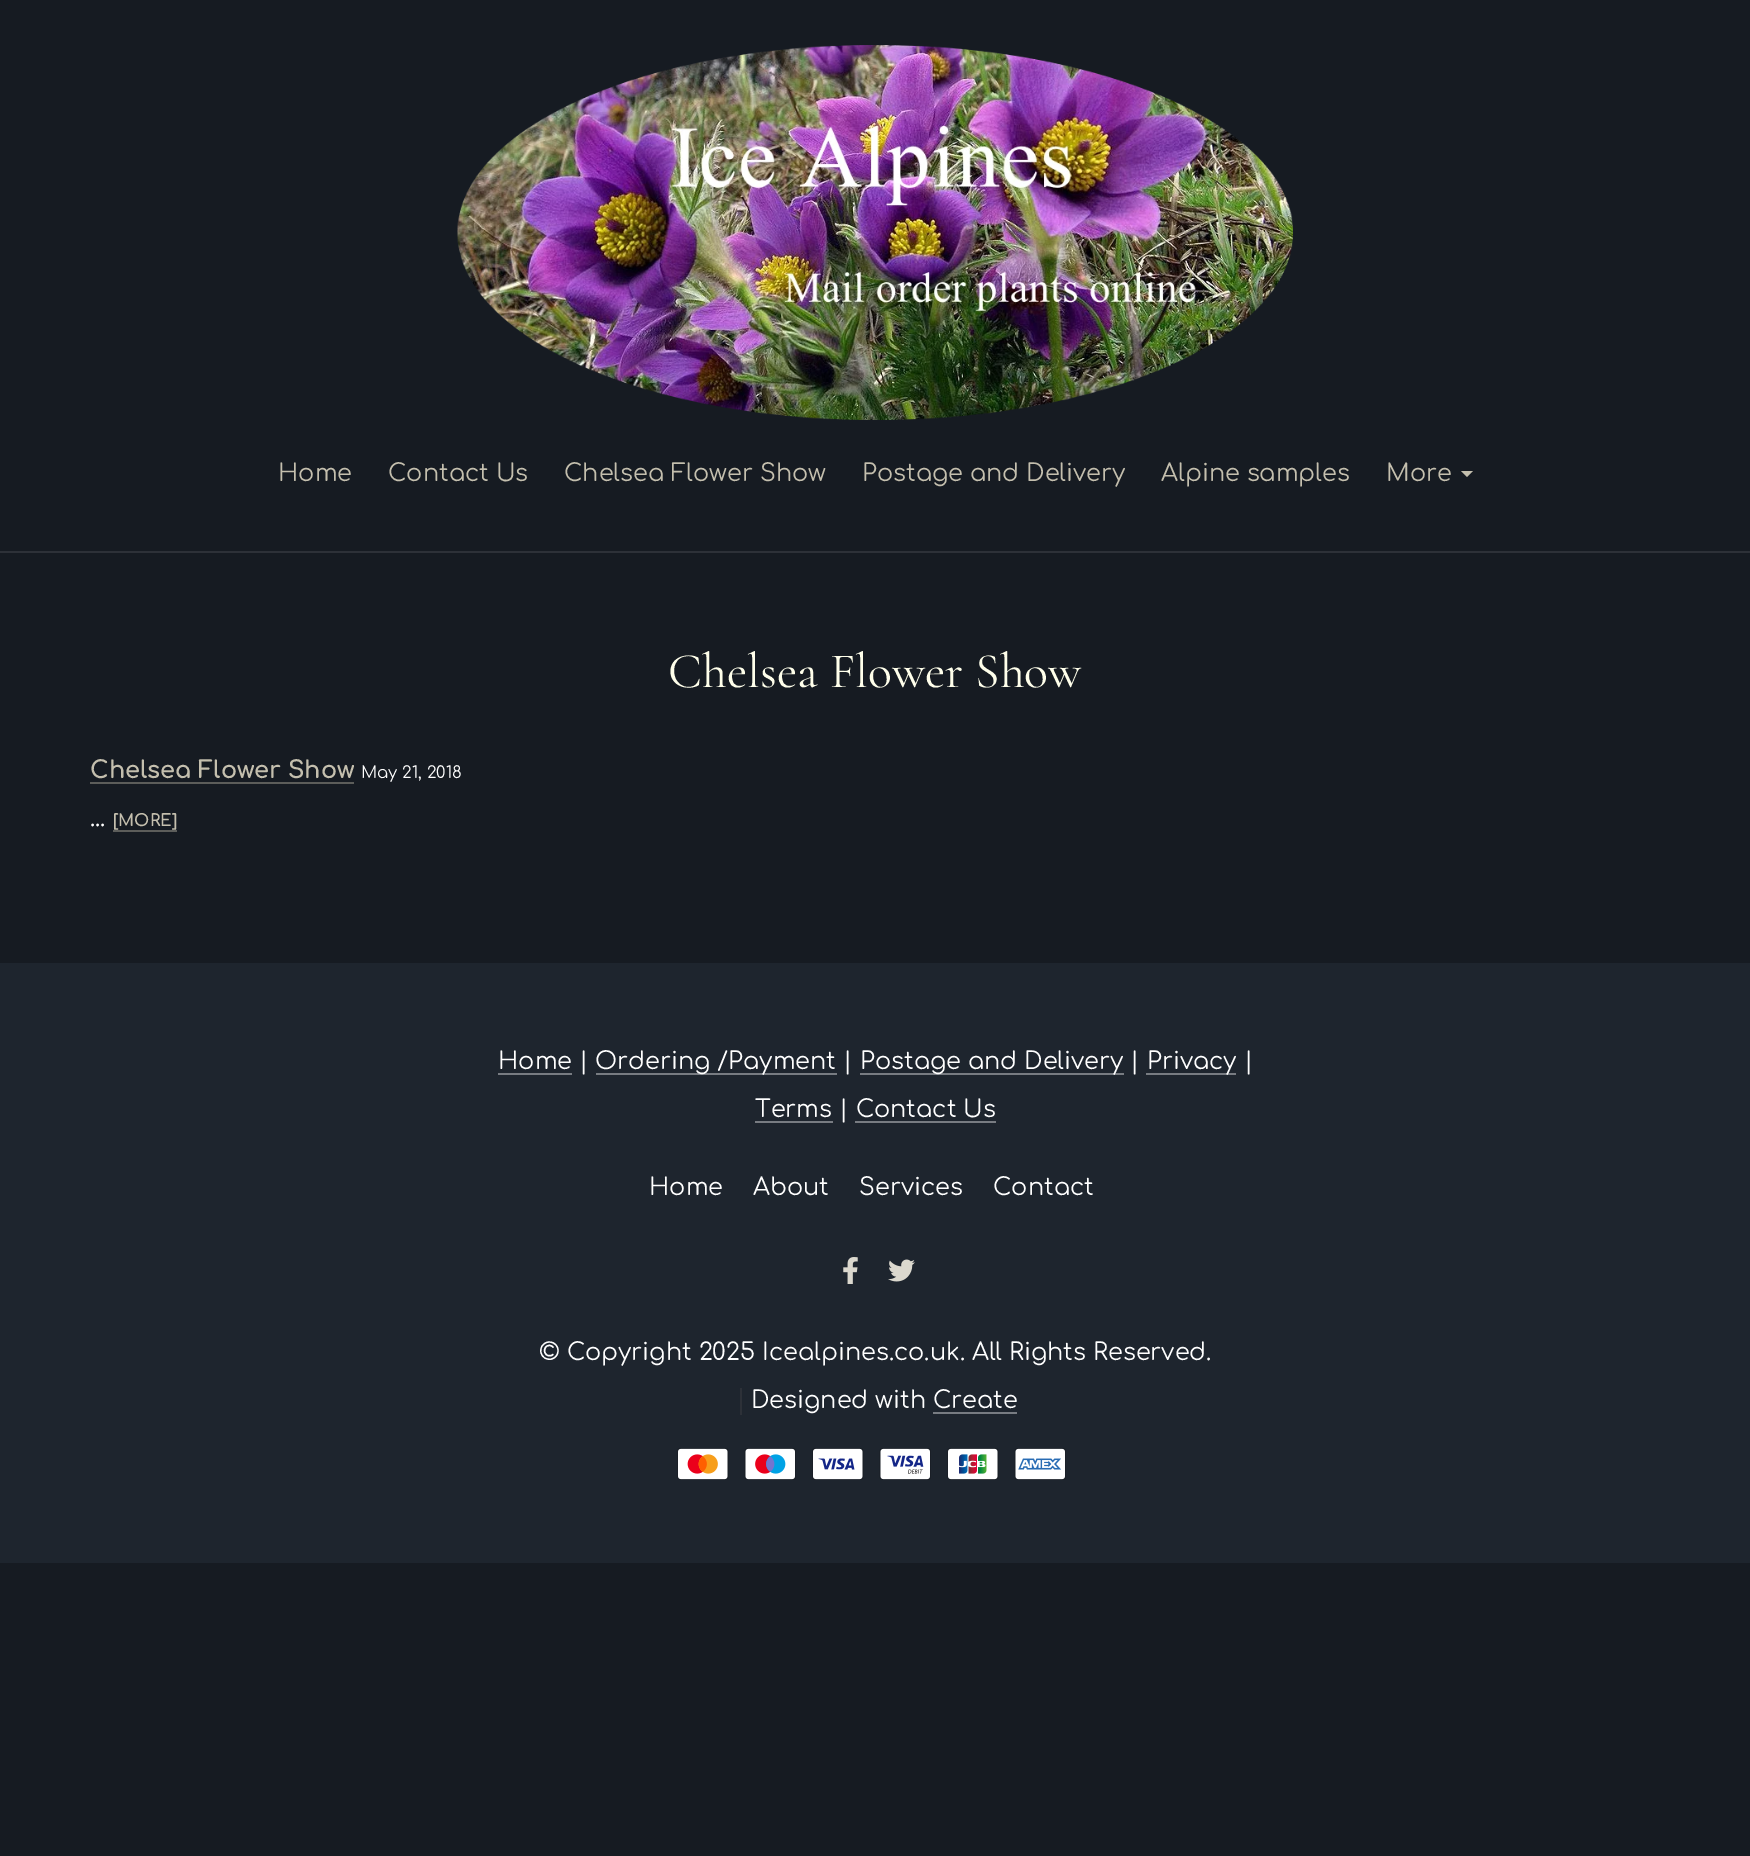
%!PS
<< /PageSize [1750 1856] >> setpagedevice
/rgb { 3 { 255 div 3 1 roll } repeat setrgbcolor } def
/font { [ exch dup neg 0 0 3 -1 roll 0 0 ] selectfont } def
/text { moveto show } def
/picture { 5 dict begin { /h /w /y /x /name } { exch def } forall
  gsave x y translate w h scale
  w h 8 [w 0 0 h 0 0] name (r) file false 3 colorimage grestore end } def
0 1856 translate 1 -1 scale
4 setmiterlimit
22 27 34 rgb
0 0 1750 1856 rectfill
45 49 56 rgb
0 551 1750 2 rectfill
(img_01.rgb) 457 45 836 375 picture
196 191 174 rgb
1461 471 moveto 12 0 rlineto -6 6 rlineto closepath fill
92 93 90 rgb
90 782 264 2 rectfill
113 830 64 2 rectfill
30 37 46 rgb
0 963 1750 600 rectfill
120 124 130 rgb
498 1073 74 2 rectfill
596 1073 241 2 rectfill
860 1073 264 2 rectfill
1146 1073 90 2 rectfill
755 1121 78 2 rectfill
(img_02.rgb) 843 1257 15 27 picture
(img_03.rgb) 888 1259 27 23 picture
45 49 56 rgb
740 1388 2 27 rectfill
(img_04.rgb) 677 1448 52 32 picture
(img_05.rgb) 744 1448 52 32 picture
(img_06.rgb) 812 1448 52 32 picture
(img_07.rgb) 879 1448 52 32 picture
(img_08.rgb) 947 1448 52 32 picture
(img_09.rgb) 1014 1448 52 32 picture
/Comfortaa-Regular 24 font
196 191 174 rgb
(Home) 278 481 text
(Contact Us) 388 481 text
(Chelsea Flower Show) 564 481 text
(Postage and Delivery) 862 481 text
(Alpine samples) 1161 481 text
(More) 1386 481 text
/CormorantGaramond-Regular 49.75 font
255 255 235 rgb
(Chelsea Flower Show) 668 687 text
/Comfortaa-Bold 24 font
196 191 174 rgb
(Chelsea Flower Show) 90 778 text
/Comfortaa-Regular 16.5 font
255 255 255 rgb
(May 21, 2018) 361 778 text
/Comfortaa-Regular 24 font
(...) 90 826 text
/Comfortaa-Bold 16.5 font
196 191 174 rgb
([MORE]) 113 826 text
/Comfortaa-Regular 24 font
255 255 255 rgb
(Home |) 498 1069 text
(Ordering /Payment |) 595 1069 text
(Postage and Delivery |) 860 1069 text
(Privacy |) 1147 1069 text
(Terms | Contact Us) 755 1117 text
120 124 130 rgb
855 1121 141 2 rectfill
255 255 255 rgb
(Home) 649 1195 text
(About) 753 1195 text
(Services) 859 1195 text
(Contact) 993 1195 text
(© Copyright 2025 Icealpines.co.uk. All Rights Reserved.) 539 1360 text
(Designed with Create) 751 1408 text
120 124 130 rgb
933 1412 84 2 rectfill
showpage
